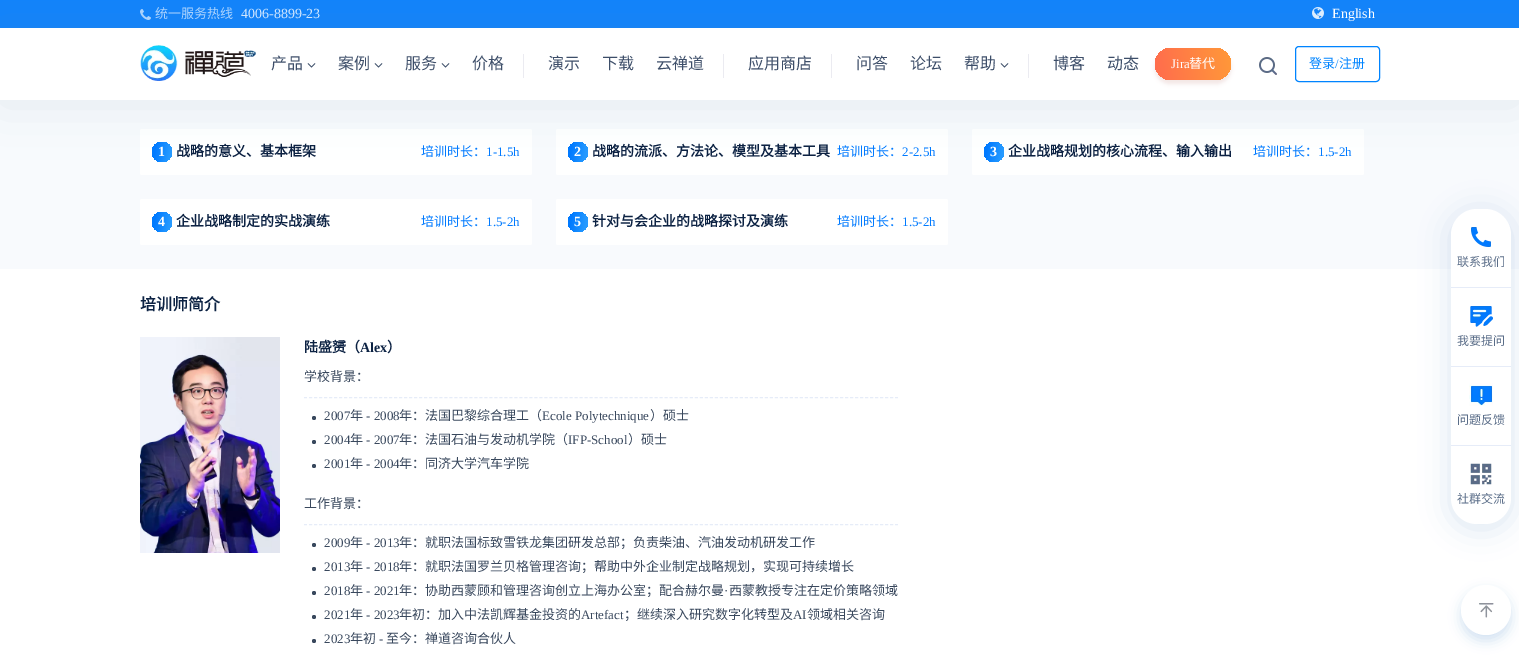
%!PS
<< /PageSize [1519 665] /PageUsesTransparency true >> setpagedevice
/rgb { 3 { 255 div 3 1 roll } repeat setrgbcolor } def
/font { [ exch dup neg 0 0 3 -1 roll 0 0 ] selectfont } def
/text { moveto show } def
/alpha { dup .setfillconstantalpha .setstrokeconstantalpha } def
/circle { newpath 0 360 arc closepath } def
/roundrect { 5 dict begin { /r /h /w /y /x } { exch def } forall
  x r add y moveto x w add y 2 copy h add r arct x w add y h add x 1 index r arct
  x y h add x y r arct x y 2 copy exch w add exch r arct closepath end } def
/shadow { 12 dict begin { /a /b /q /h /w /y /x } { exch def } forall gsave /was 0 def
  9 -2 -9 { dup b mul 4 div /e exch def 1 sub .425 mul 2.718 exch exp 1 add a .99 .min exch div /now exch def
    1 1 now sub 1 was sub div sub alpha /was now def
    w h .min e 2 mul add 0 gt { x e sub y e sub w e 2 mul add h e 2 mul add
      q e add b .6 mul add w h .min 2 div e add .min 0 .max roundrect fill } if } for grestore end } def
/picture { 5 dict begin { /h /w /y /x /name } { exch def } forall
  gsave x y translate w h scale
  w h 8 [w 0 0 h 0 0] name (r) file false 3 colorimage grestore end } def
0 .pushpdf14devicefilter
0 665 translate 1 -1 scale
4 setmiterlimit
255 255 255 rgb
0 0 1519 665 rectfill
17 131 251 rgb
0 0 1519 28 rectfill
248 250 253 rgb
0 100 1519 169 rectfill
255 255 255 rgb
140 129 392 46 2 roundrect fill
gsave 162 152 10 circle clip newpath
<< /ShadingType 2 /ColorSpace /DeviceRGB /Coords [151 150 173 154] /Extend [true true] /Function << /FunctionType 3 /Domain [0 1] /Functions [<< /FunctionType 2 /Domain [0 1] /C0 [0 0.478 1] /C1 [0 0.478 1] /N 1 >> << /FunctionType 2 /Domain [0 1] /C0 [0 0.478 1] /C1 [0.149 0.604 1] /N 1 >> << /FunctionType 2 /Domain [0 1] /C0 [0.149 0.604 1] /C1 [0.149 0.604 1] /N 1 >>] /Bounds [0.16 0.86] /Encode [0 1 0 1 0 1] >> >> shfill grestore
556 129 392 46 2 roundrect fill
gsave 578 152 10 circle clip newpath
<< /ShadingType 2 /ColorSpace /DeviceRGB /Coords [567 150 589 154] /Extend [true true] /Function << /FunctionType 3 /Domain [0 1] /Functions [<< /FunctionType 2 /Domain [0 1] /C0 [0 0.478 1] /C1 [0 0.478 1] /N 1 >> << /FunctionType 2 /Domain [0 1] /C0 [0 0.478 1] /C1 [0.149 0.604 1] /N 1 >> << /FunctionType 2 /Domain [0 1] /C0 [0.149 0.604 1] /C1 [0.149 0.604 1] /N 1 >>] /Bounds [0.16 0.86] /Encode [0 1 0 1 0 1] >> >> shfill grestore
972 129 392 46 2 roundrect fill
gsave 994 152 10 circle clip newpath
<< /ShadingType 2 /ColorSpace /DeviceRGB /Coords [983 150 1005 154] /Extend [true true] /Function << /FunctionType 3 /Domain [0 1] /Functions [<< /FunctionType 2 /Domain [0 1] /C0 [0 0.478 1] /C1 [0 0.478 1] /N 1 >> << /FunctionType 2 /Domain [0 1] /C0 [0 0.478 1] /C1 [0.149 0.604 1] /N 1 >> << /FunctionType 2 /Domain [0 1] /C0 [0.149 0.604 1] /C1 [0.149 0.604 1] /N 1 >>] /Bounds [0.16 0.86] /Encode [0 1 0 1 0 1] >> >> shfill grestore
gsave
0 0 moveto 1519 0 rlineto 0 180 rlineto -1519 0 rlineto closepath 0 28 moveto 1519 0 rlineto 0 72 rlineto -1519 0 rlineto closepath eoclip newpath
116 136 154 rgb
0 32 1519 72 0 25 0.15 shadow
grestore
(img_01.rgb) 140 9 11 11 picture
(img_02.rgb) 1312 7 12 12 picture
(img_03.rgb) 140 45 116 36 picture
(img_04.rgb) 307 63 9 5 picture
(img_04.rgb) 374 63 9 5 picture
(img_04.rgb) 441 63 9 5 picture
235 235 241 rgb
523 54 1 24 rectfill
723 54 1 24 rectfill
831 54 1 24 rectfill
(img_04.rgb) 1000 63 9 5 picture
1028 54 1 24 rectfill
172 101 75 rgb
1155 52 76 32 16 2 0.15 shadow
gsave 1155 48 76 32 16 roundrect clip newpath
<< /ShadingType 2 /ColorSpace /DeviceRGB /Coords [1153 71 1233 57] /Extend [true true] /Function << /FunctionType 3 /Domain [0 1] /Functions [<< /FunctionType 2 /Domain [0 1] /C0 [1 0.427 0.302] /C1 [1 0.427 0.302] /N 1 >> << /FunctionType 2 /Domain [0 1] /C0 [1 0.427 0.302] /C1 [1 0.596 0.224] /N 1 >> << /FunctionType 2 /Domain [0 1] /C0 [1 0.596 0.224] /C1 [1 0.596 0.224] /N 1 >>] /Bounds [0.03 0.97] /Encode [0 1 0 1 0 1] >> >> shfill grestore
(img_05.rgb) 1259 57 18 18 picture
0 132 255 rgb
1295.5 46.5 84 35 3.5 roundrect stroke
255 255 255 rgb
140 199 392 46 2 roundrect fill
gsave 162 222 10 circle clip newpath
<< /ShadingType 2 /ColorSpace /DeviceRGB /Coords [151 220 173 224] /Extend [true true] /Function << /FunctionType 3 /Domain [0 1] /Functions [<< /FunctionType 2 /Domain [0 1] /C0 [0 0.478 1] /C1 [0 0.478 1] /N 1 >> << /FunctionType 2 /Domain [0 1] /C0 [0 0.478 1] /C1 [0.149 0.604 1] /N 1 >> << /FunctionType 2 /Domain [0 1] /C0 [0.149 0.604 1] /C1 [0.149 0.604 1] /N 1 >>] /Bounds [0.16 0.86] /Encode [0 1 0 1 0 1] >> >> shfill grestore
556 199 392 46 2 roundrect fill
gsave 578 222 10 circle clip newpath
<< /ShadingType 2 /ColorSpace /DeviceRGB /Coords [567 220 589 224] /Extend [true true] /Function << /FunctionType 3 /Domain [0 1] /Functions [<< /FunctionType 2 /Domain [0 1] /C0 [0 0.478 1] /C1 [0 0.478 1] /N 1 >> << /FunctionType 2 /Domain [0 1] /C0 [0 0.478 1] /C1 [0.149 0.604 1] /N 1 >> << /FunctionType 2 /Domain [0 1] /C0 [0.149 0.604 1] /C1 [0.149 0.604 1] /N 1 >>] /Bounds [0.16 0.86] /Encode [0 1 0 1 0 1] >> >> shfill grestore
(img_06.rgb) 140 337 140 216 picture
230 236 248 rgb
[3 2.01] 0 setdash
304 397.5 moveto 594 0 rlineto stroke
57 72 93 rgb
314 418 2 circle fill
314 442 2 circle fill
314 466 2 circle fill
230 236 248 rgb
304 524.5 moveto 594 0 rlineto stroke
57 72 93 rgb
314 545 2 circle fill
314 569 2 circle fill
314 593 2 circle fill
314 617 2 circle fill
314 641 2 circle fill
17 95 186 rgb
1461 591 50 50 25 6 0.18 shadow
255 255 255 rgb
1486 610 25 circle fill
(img_07.rgb) 1479 603 15 15 picture
15 82 160 rgb
1451 213 60 315 26 15 0.15 shadow
255 255 255 rgb
1451 209 60 315 26 roundrect fill
230 236 248 rgb
1451 287 60 1 rectfill
(img_08.rgb) 1471 227 20 20 picture
1451 366 60 1 rectfill
(img_09.rgb) 1470 306 23 21 picture
1451 445 60 1 rectfill
(img_10.rgb) 1469 383 24 23 picture
(img_11.rgb) 1470 463 22 22 picture
/NotoSansCJKSC-Regular 13 font
170 210 253 rgb
(统一服务热线) 155 18 text
/LiberationSerif-Regular 14 font
208 230 254 rgb
(4006-8899-23) 241 18 text
255 255 255 rgb
(English) 1332 18 text
/NotoSansCJKSC-Regular 16 font
61 78 105 rgb
(产品) 271 69 text
(案例) 338 69 text
(服务) 405 69 text
(价格) 472 69 text
(演示) 548 69 text
(下载) 602 69 text
(云禅道) 656 69 text
(应用商店) 748 69 text
(问答) 856 69 text
(论坛) 910 69 text
(帮助) 964 69 text
(博客) 1053 69 text
(动态) 1107 69 text
/LiberationSerif-Regular 13 font
255 255 255 rgb
(Jira) 1171 68 text
/NotoSansCJKSC-Regular 13 font
(替代) 1189 68 text
0 132 255 rgb
(登录) 1309 68 text
/LiberationSerif-Regular 13 font
(/) 1335 68 text
/NotoSansCJKSC-Regular 13 font
(注册) 1339 68 text
/LiberationSerif-Bold 14 font
255 255 255 rgb
(1) 158 156 text
/NotoSansCJKSC-Bold 14 font
12 34 67 rgb
(战略的意义、基本框架) 176 156 text
/NotoSansCJKSC-Regular 13 font
0 122 255 rgb
(培训时长：) 421 156 text
/LiberationSerif-Regular 13 font
(1-1.5h) 486 156 text
/LiberationSerif-Bold 14 font
255 255 255 rgb
(2) 574 156 text
/NotoSansCJKSC-Bold 14 font
12 34 67 rgb
(战略的流派、方法论、模型及基本工具) 592 156 text
/NotoSansCJKSC-Regular 13 font
0 122 255 rgb
(培训时长：) 837 156 text
/LiberationSerif-Regular 13 font
(2-2.5h) 902 156 text
/LiberationSerif-Bold 14 font
255 255 255 rgb
(3) 990 156 text
/NotoSansCJKSC-Bold 14 font
12 34 67 rgb
(企业战略规划的核心流程、输入输出) 1008 156 text
/NotoSansCJKSC-Regular 13 font
0 122 255 rgb
(培训时长：) 1253 156 text
/LiberationSerif-Regular 13 font
(1.5-2h) 1318 156 text
/LiberationSerif-Bold 14 font
255 255 255 rgb
(4) 158 226 text
/NotoSansCJKSC-Bold 14 font
12 34 67 rgb
(企业战略制定的实战演练) 176 226 text
/NotoSansCJKSC-Regular 13 font
0 122 255 rgb
(培训时长：) 421 226 text
/LiberationSerif-Regular 13 font
(1.5-2h) 486 226 text
/LiberationSerif-Bold 14 font
255 255 255 rgb
(5) 574 226 text
/NotoSansCJKSC-Bold 14 font
12 34 67 rgb
(针对与会企业的战略探讨及演练) 592 226 text
/NotoSansCJKSC-Regular 13 font
0 122 255 rgb
(培训时长：) 837 226 text
/LiberationSerif-Regular 13 font
(1.5-2h) 902 226 text
/NotoSansCJKSC-Bold 16 font
12 34 67 rgb
(培训师简介) 140 310 text
/NotoSansCJKSC-Bold 14 font
(陆盛赟（) 304 352 text
/LiberationSerif-Bold 14 font
(Alex) 360 352 text
/NotoSansCJKSC-Bold 14 font
(）) 387 352 text
/NotoSansCJKSC-Regular 13 font
57 72 93 rgb
(学校背景：) 304 381 text
/LiberationSerif-Regular 13 font
(2007) 324 420 text
/NotoSansCJKSC-Regular 13 font
(年) 350 420 text
/LiberationSerif-Regular 13 font
(- 2008) 366 420 text
/NotoSansCJKSC-Regular 13 font
(年：法国巴黎综合理工（) 399 420 text
/LiberationSerif-Regular 13 font
(Ecole Polytechnique) 542 420 text
/NotoSansCJKSC-Regular 13 font
(）硕士) 650 420 text
/LiberationSerif-Regular 13 font
(2004) 324 444 text
/NotoSansCJKSC-Regular 13 font
(年) 350 444 text
/LiberationSerif-Regular 13 font
(- 2007) 366 444 text
/NotoSansCJKSC-Regular 13 font
(年：法国石油与发动机学院（) 399 444 text
/LiberationSerif-Regular 13 font
(IFP-School) 568 444 text
/NotoSansCJKSC-Regular 13 font
(）硕士) 628 444 text
/LiberationSerif-Regular 13 font
(2001) 324 468 text
/NotoSansCJKSC-Regular 13 font
(年) 350 468 text
/LiberationSerif-Regular 13 font
(- 2004) 366 468 text
/NotoSansCJKSC-Regular 13 font
(年：同济大学汽车学院) 399 468 text
(工作背景：) 304 508 text
/LiberationSerif-Regular 13 font
(2009) 324 547 text
/NotoSansCJKSC-Regular 13 font
(年) 350 547 text
/LiberationSerif-Regular 13 font
(- 2013) 366 547 text
/NotoSansCJKSC-Regular 13 font
(年：就职法国标致雪铁龙集团研发总部；负责柴油、汽油发动机研发工作) 399 547 text
/LiberationSerif-Regular 13 font
(2013) 324 571 text
/NotoSansCJKSC-Regular 13 font
(年) 350 571 text
/LiberationSerif-Regular 13 font
(- 2018) 366 571 text
/NotoSansCJKSC-Regular 13 font
(年：就职法国罗兰贝格管理咨询；帮助中外企业制定战略规划，实现可持续增长) 399 571 text
/LiberationSerif-Regular 13 font
(2018) 324 595 text
/NotoSansCJKSC-Regular 13 font
(年) 350 595 text
/LiberationSerif-Regular 13 font
(- 2021) 366 595 text
/NotoSansCJKSC-Regular 13 font
(年：协助西蒙顾和管理咨询创立上海办公室；配合赫尔曼) 399 595 text
/LiberationSerif-Regular 13 font
(·) 724 595 text
/NotoSansCJKSC-Regular 13 font
(西蒙教授专注在定价策略领域) 729 595 text
/LiberationSerif-Regular 13 font
(2021) 324 619 text
/NotoSansCJKSC-Regular 13 font
(年) 350 619 text
/LiberationSerif-Regular 13 font
(- 2023) 366 619 text
/NotoSansCJKSC-Regular 13 font
(年初：加入中法凯辉基金投资的) 399 619 text
/LiberationSerif-Regular 13 font
(Artefact) 581 619 text
/NotoSansCJKSC-Regular 13 font
(；继续深入研究数字化转型及) 624 619 text
/LiberationSerif-Regular 13 font
(AI) 793 619 text
/NotoSansCJKSC-Regular 13 font
(领域相关咨询) 807 619 text
/LiberationSerif-Regular 13 font
(2023) 324 643 text
/NotoSansCJKSC-Regular 13 font
(年初) 350 643 text
/LiberationSerif-Regular 13 font
(-) 379 643 text
/NotoSansCJKSC-Regular 13 font
(至今：禅道咨询合伙人) 386 643 text
/NotoSansCJKSC-Regular 12 font
90 109 136 rgb
(联系我们) 1457 266 text
(我要提问) 1457 345 text
(问题反馈) 1457 424 text
(社群交流) 1457 503 text
.poppdf14devicefilter showpage
